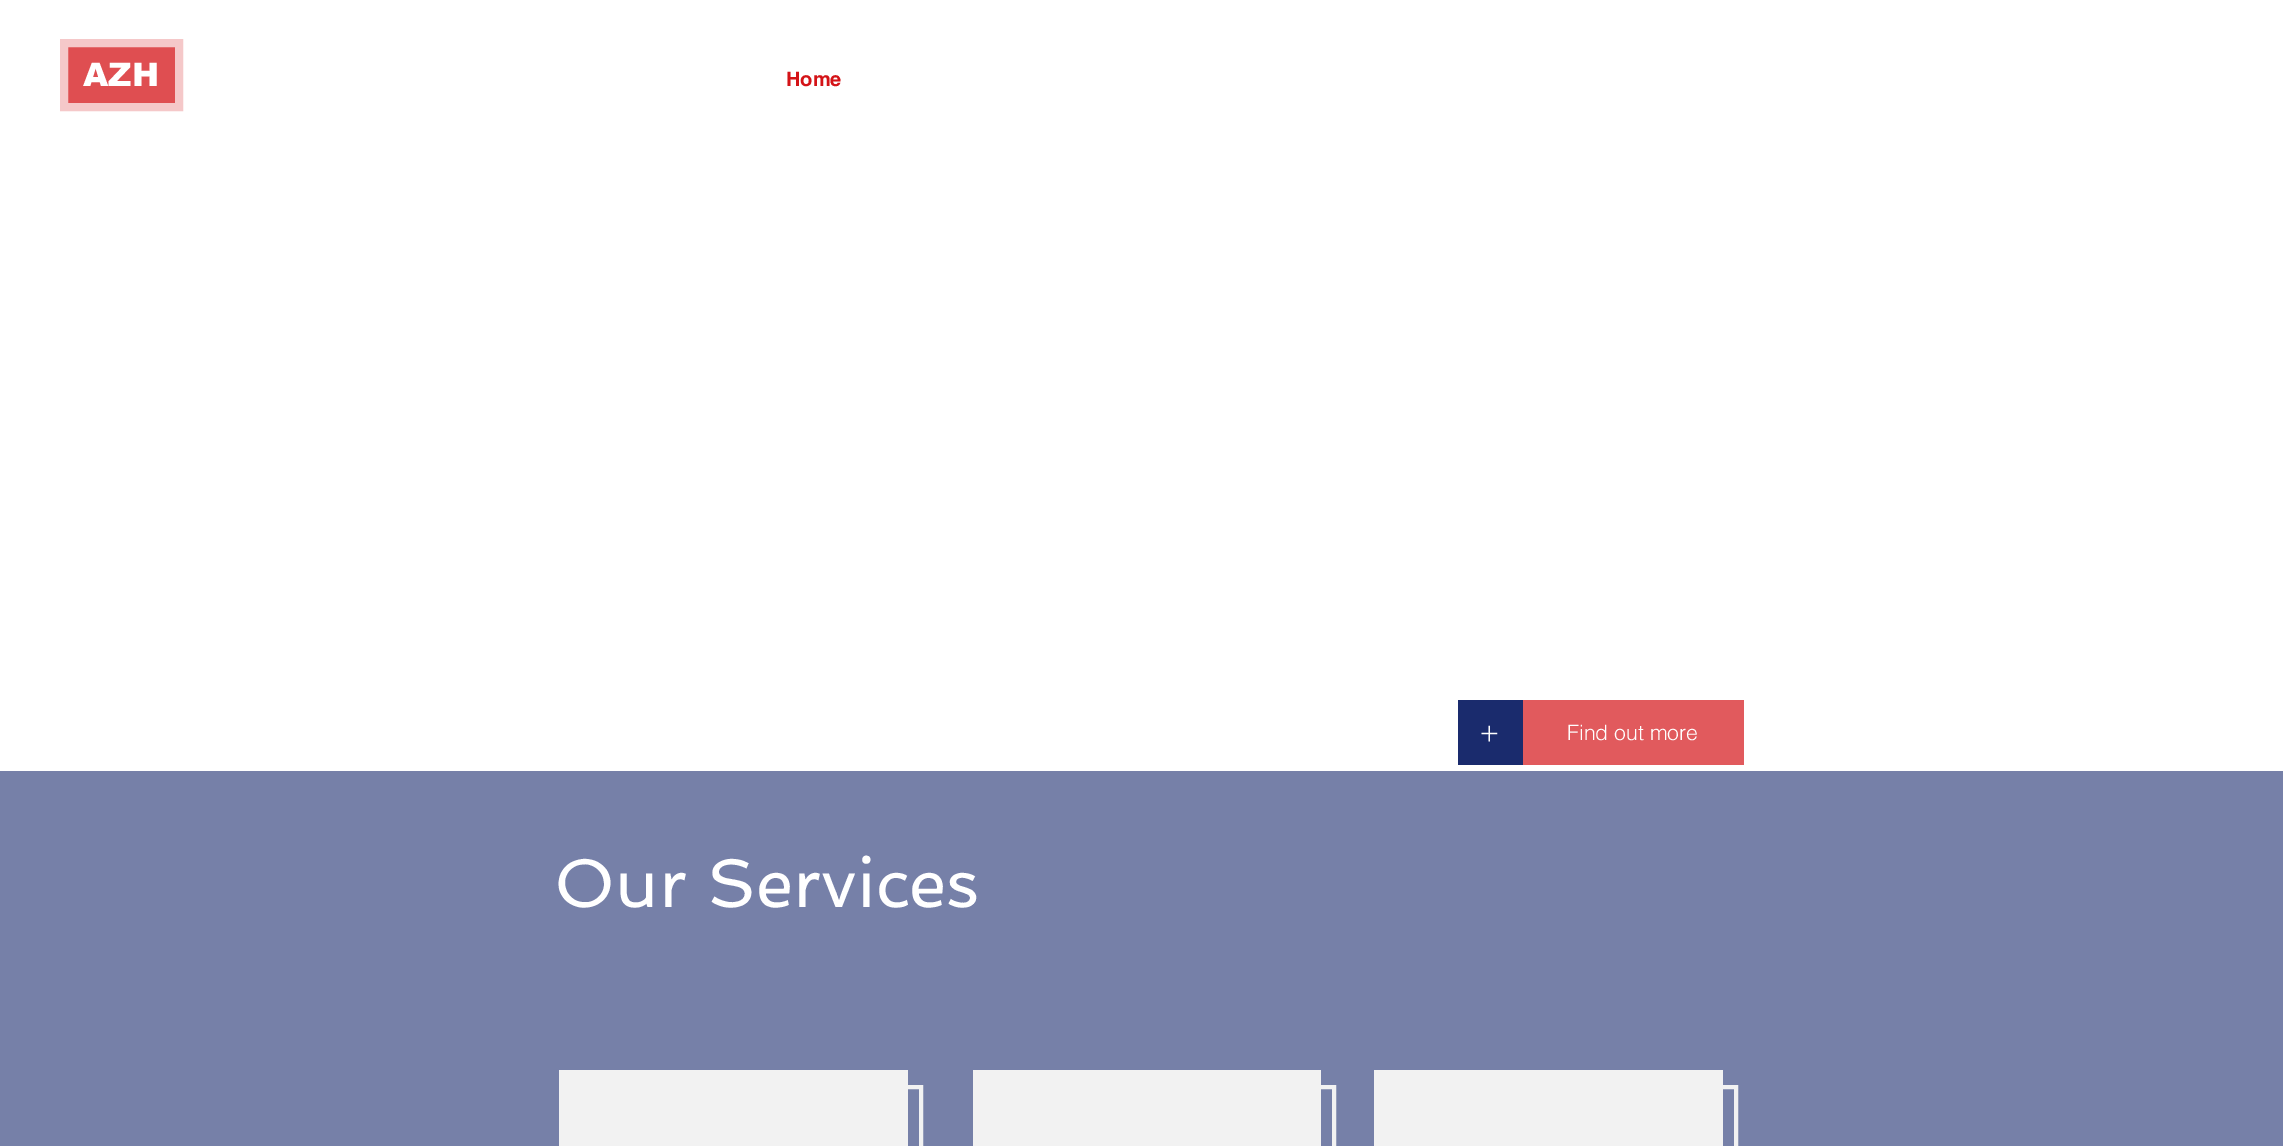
%!PS
<< /PageSize [2283 1146] >> setpagedevice
/rgb { 3 { 255 div 3 1 roll } repeat setrgbcolor } def
/font { [ exch dup neg 0 0 3 -1 roll 0 0 ] selectfont } def
/text { moveto show } def
0 1146 translate 1 -1 scale
4 setmiterlimit
255 255 255 rgb
0 0 2283 1146 rectfill
223 78 81 rgb
64 43 moveto 115 0 rlineto 0 64 rlineto -115 0 rlineto closepath gsave fill grestore
245 200 201 rgb
8 setlinewidth
stroke
26 43 109 rgb
1458 700 65 65 rectfill
225 90 93 rgb
1523 700 221 65 rectfill
118 128 168 rgb
0 771 2283 375 rectfill
242 242 242 rgb
4 setlinewidth
576 1087 345 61 rectstroke
559 1070 349 76 rectfill
990 1087 344 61 rectstroke
973 1070 348 76 rectfill
1391 1087 345 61 rectstroke
1374 1070 349 76 rectfill
/arial-Black 32.5 font
255 255 255 rgb
(AZH) 83 86 text
/helvetica-Bold 20 font
212 19 23 rgb
(Home) 786 86 text
/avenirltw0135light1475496-Light 31 font
255 255 255 rgb
(+) 1479 743 text
/helvetica-Light 21.25 font
(Find out more) 1567 740 text
/Spinnaker-Regular 68.75 font
(Our Services) 554 907 text
showpage
